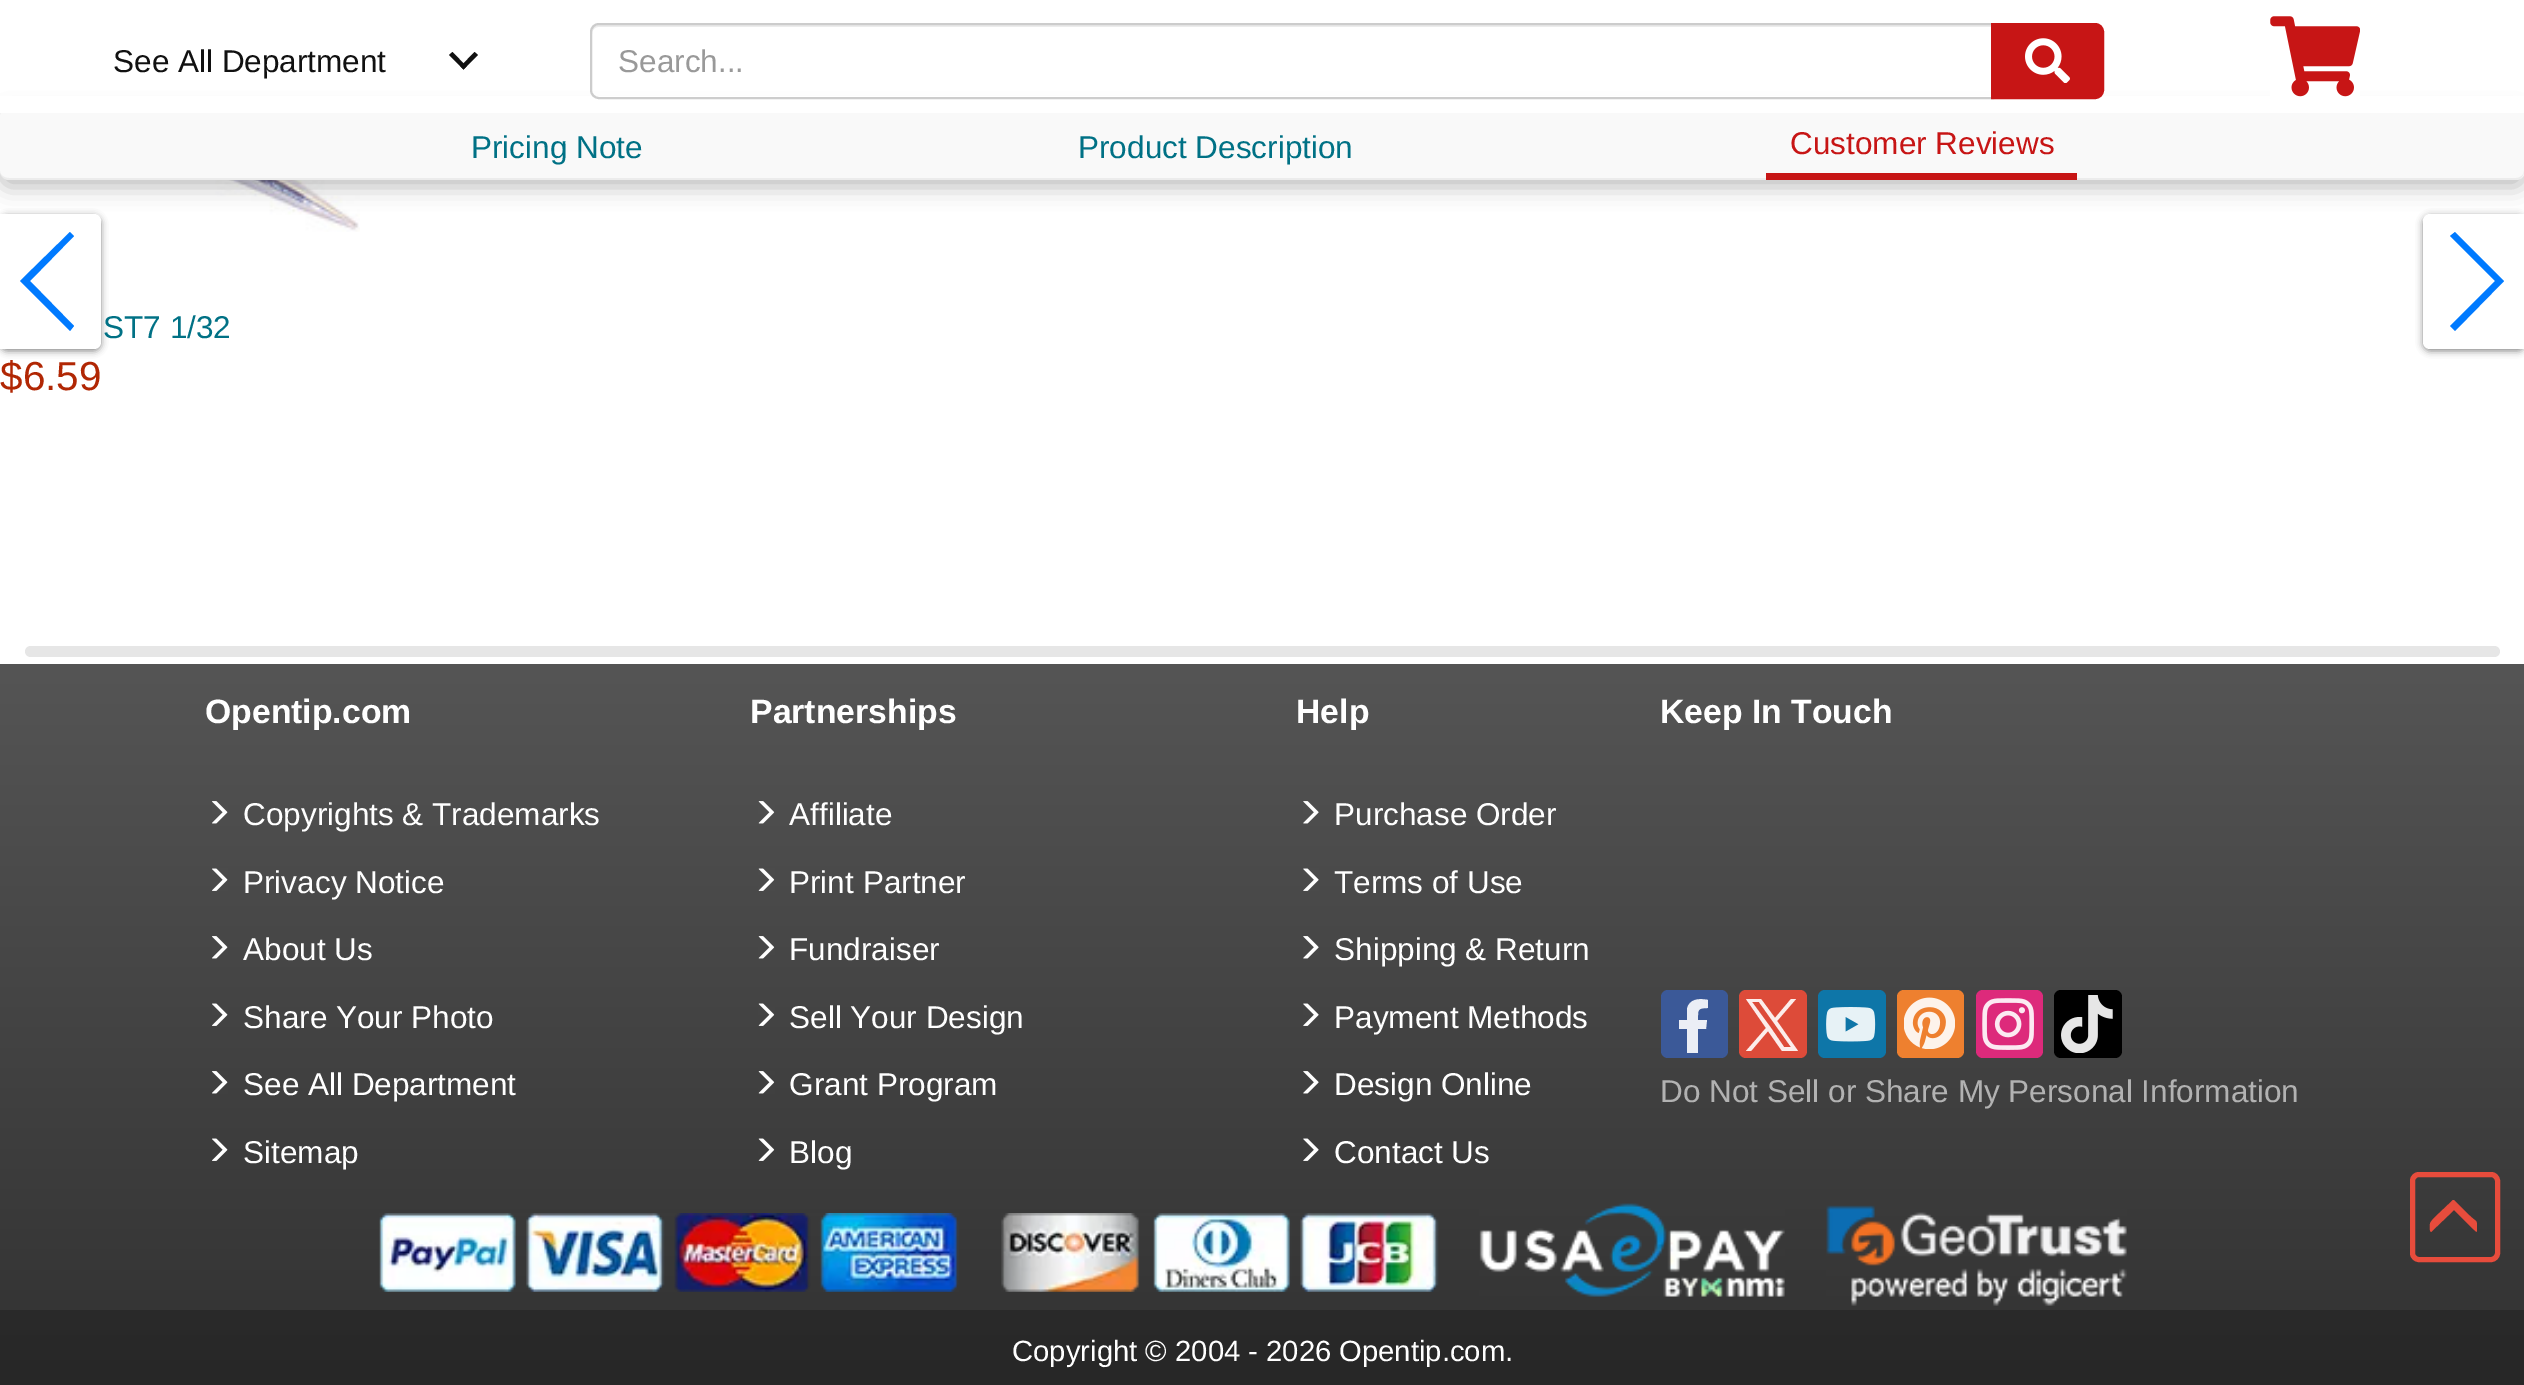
%!PS
<< /PageSize [2524 1385] /PageUsesTransparency true >> setpagedevice
/rgb { 3 { 255 div 3 1 roll } repeat setrgbcolor } def
/font { [ exch dup neg 0 0 3 -1 roll 0 0 ] selectfont } def
/text { moveto show } def
/alpha { dup .setfillconstantalpha .setstrokeconstantalpha } def
/roundrect { 5 dict begin { /r /h /w /y /x } { exch def } forall
  x r add y moveto x w add y 2 copy h add r arct x w add y h add x 1 index r arct
  x y h add x y r arct x y 2 copy exch w add exch r arct closepath end } def
/shadow { 12 dict begin { /a /b /q /h /w /y /x } { exch def } forall gsave /was 0 def
  9 -2 -9 { dup b mul 4 div /e exch def 1 sub .425 mul 2.718 exch exp 1 add a .99 .min exch div /now exch def
    1 1 now sub 1 was sub div sub alpha /was now def
    w h .min e 2 mul add 0 gt { x e sub y e sub w e 2 mul add h e 2 mul add
      q e add b .6 mul add w h .min 2 div e add .min 0 .max roundrect fill } if } for grestore end } def
/picture { 5 dict begin { /h /w /y /x /name } { exch def } forall
  gsave x y translate w h scale
  w h 8 [w 0 0 h 0 0] name (r) file false 3 colorimage grestore end } def
0 .pushpdf14devicefilter
0 1385 translate 1 -1 scale
4 setmiterlimit
255 255 255 rgb
0 0 2524 1385 rectfill
(img_03.rgb) 0 113 360 119 picture
136 136 136 rgb
0 216 101 135 7 3.5 1 shadow
255 255 255 rgb
0 214 moveto 94 0 rlineto 4 0 7 3 7 7 rcurveto 0 121 rlineto 0 4 -3 7 -7 7 rcurveto -94 0 rlineto closepath fill
136 136 136 rgb
2423 216 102 135 7 3.5 1 shadow
255 255 255 rgb
2430 214 moveto 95 0 rlineto 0 135 rlineto -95 0 rlineto -4 0 -7 -3 -7 -7 rcurveto 0 -121 rlineto 0 -4 3 -7 7 -7 rcurveto closepath fill
0 0 0 rgb
0 115 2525 72 9 11 0.25 shadow
249 249 249 rgb
0 108 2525 72 9 roundrect fill
255 255 255 rgb
0 96 2524 17 rectfill
17 17 17 rgb
452.5 52 moveto 14 14.5 rlineto -3 3 rlineto -14.5 -14.5 rlineto closepath fill
460.5 66.5 moveto 14 -14.5 rlineto 3.5 3 rlineto -14.5 14.5 rlineto closepath fill
236 236 236 rgb
598 27 moveto 1393 0 rlineto 0 -2 rlineto -1392 0 rlineto -4 0 -7 3 -7 7 rcurveto 0 2 rlineto 0 -4 3 -7 6 -7 rcurveto closepath fill
204 204 204 rgb
2 setlinewidth
599 24 moveto 1394 0 rlineto 0 74 rlineto -1394 0 rlineto -4.5 0 -8 -3.5 -8 -8 rcurveto 0 -58 rlineto 0 -4.5 3.5 -8 8 -8 rcurveto closepath stroke
199 21 21 rgb
1992 24 moveto 103 0 rlineto 4.5 0 8 3.5 8 8 rcurveto 0 58 rlineto 0 4.5 -3.5 8 -8 8 rcurveto -103 0 rlineto closepath gsave fill grestore
stroke
(img_01.rgb) 2025 38 45 45 picture
(img_02.rgb) 2270 16 90 81 picture
0.05 alpha
0 0 0 rgb
2516 180 moveto 4 0 8 -4 8 -9 rcurveto 0 4 -4 7 -8 7 rcurveto -2507 0 rlineto -5 0 -9 -3 -9 -7 rcurveto 0 5 4 9 9 9 rcurveto closepath fill
1 alpha
199 21 21 rgb
1766 173 311 7 rectfill
0 122 255 rgb
20 281 moveto 50 -49 rlineto 4 4 rlineto -44 45 rlineto 44 45 rlineto -4 5 rlineto closepath fill
2504 281 moveto -49 50 rlineto -5 -5 rlineto 45 -45 rlineto -45 -45 rlineto 5 -4 rlineto closepath fill
230 230 230 rgb
25 646 2475 11 5.5 roundrect fill
gsave 0 664 moveto 2524 0 rlineto 0 646 rlineto -2524 0 rlineto closepath clip newpath
<< /ShadingType 2 /ColorSpace /DeviceRGB /Coords [1262 664 1262 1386] /Extend [true true] /Function << /FunctionType 2 /Domain [0 1] /C0 [0.333 0.333 0.333] /C1 [0.192 0.192 0.192] /N 1 >> >> shfill grestore
gsave 0 1310 moveto 2524 0 rlineto 0 75 rlineto -2524 0 rlineto closepath clip newpath
<< /ShadingType 2 /ColorSpace /DeviceRGB /Coords [1262 664 1262 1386] /Extend [true true] /Function << /FunctionType 2 /Domain [0 1] /C0 [0.267 0.267 0.267] /C1 [0.153 0.153 0.153] /N 1 >> >> shfill grestore
(img_04.rgb) 212 801 16 23 picture
(img_05.rgb) 212 868 16 23 picture
(img_06.rgb) 212 936 16 23 picture
(img_07.rgb) 212 1003 16 23 picture
(img_08.rgb) 212 1071 16 23 picture
(img_09.rgb) 212 1138 16 23 picture
(img_10.rgb) 758 801 17 23 picture
(img_11.rgb) 758 868 17 23 picture
(img_12.rgb) 758 936 17 23 picture
(img_13.rgb) 758 1003 17 23 picture
(img_14.rgb) 758 1071 17 23 picture
(img_15.rgb) 758 1138 17 23 picture
(img_16.rgb) 1303 801 16 23 picture
(img_17.rgb) 1303 868 16 23 picture
(img_18.rgb) 1303 936 16 23 picture
(img_19.rgb) 1303 1003 16 23 picture
(img_20.rgb) 1303 1071 16 23 picture
(img_21.rgb) 1303 1138 16 23 picture
59 89 152 rgb
1661 990 67 68 7 roundrect fill
235 238 245 rgb
1706 1029 moveto 1 -9 rlineto -9 0 rlineto 0 -10 -1 -12 10 -12 rcurveto 0 -8 rlineto -9 -2 -19 -1 -21 9 rcurveto 0 11 rlineto -8 0 rlineto 0 9 rlineto 8 0 rlineto 0 24 rlineto 11 0 rlineto 0 -24 rlineto closepath fill
221 75 57 rgb
1739 990 68 68 7 roundrect fill
252 237 235 rgb
1777 1021 moveto 19 -22 rlineto -5 0 rlineto -16 19 rlineto -14 -19 rlineto -15 0 rlineto 20 29 rlineto -20 23 rlineto 5 0 rlineto 17 -20 rlineto 14 20 rlineto 16 0 rlineto closepath 1771 1028 moveto -19 -26 rlineto 7 0 rlineto 32 45 rlineto -7 0 rlineto closepath fill
14 118 168 rgb
1818 990 68 68 7 roundrect fill
(img_22.rgb) 1826 1007 50 35 picture
238 128 47 rgb
1897 990 67 68 7 roundrect fill
(img_23.rgb) 1904 997 51 52 picture
221 42 123 rgb
1976 990 67 68 7 roundrect fill
(img_24.rgb) 1982 998 52 52 picture
0 0 0 rgb
2054 990 68 68 7 roundrect fill
(img_25.rgb) 2061 995 52 58 picture
(img_26.rgb) 379 1213 580 79 picture
(img_27.rgb) 1001 1213 438 79 picture
(img_28.rgb) 1479 1203 306 94 picture
(img_29.rgb) 1826 1205 301 101 picture
231 76 60 rgb
5 setlinewidth
2412.5 1174.5 85 85 6.5 roundrect stroke
2454 1200 moveto 15 15 rlineto 8 8 8 4 8 13 rcurveto 0 6 0 4 -5 0 rcurveto -18 -18 rlineto -23 22 rlineto 0 0 -1 -1 -1 -1 rcurveto 0 -9 -1 -7 4 -13 rcurveto 19 -18 rlineto closepath fill
/LiberationSans-Regular 31.5 font
17 17 17 rgb
(See All Department) 113 72 text
153 153 153 rgb
(Search...) 618 72 text
0 113 133 rgb
(Pricing Note) 471 158 text
(Product Description) 1078 158 text
199 21 21 rgb
(Customer Reviews) 1790 154 text
0 113 133 rgb
(ST7 1/32) 103 338 text
/LiberationSans-Regular 40.5 font
177 39 4 rgb
($6.59) 0 390 text
/LiberationSans-Bold 33.75 font
255 255 255 rgb
(Opentip.com) 205 723 text
/LiberationSans-Regular 31.5 font
(Copyrights & Trademarks) 243 825 text
(Privacy Notice) 243 893 text
(About Us) 243 960 text
(Share Your Photo) 243 1028 text
(See All Department) 243 1095 text
(Sitemap) 243 1163 text
/LiberationSans-Bold 33.75 font
(Partnerships) 750 723 text
/LiberationSans-Regular 31.5 font
(Affiliate) 789 825 text
(Print Partner) 789 893 text
(Fundraiser) 789 960 text
(Sell Your Design) 789 1028 text
(Grant Program) 789 1095 text
(Blog) 789 1163 text
/LiberationSans-Bold 33.75 font
(Help) 1296 723 text
/LiberationSans-Regular 31.5 font
(Purchase Order) 1334 825 text
(Terms of Use) 1334 893 text
(Shipping & Return) 1334 960 text
(Payment Methods) 1334 1028 text
(Design Online) 1334 1095 text
(Contact Us) 1334 1163 text
/LiberationSans-Bold 33.75 font
(Keep In Touch) 1660 723 text
/LiberationSans-Regular 31.5 font
178 178 178 rgb
(Do Not Sell or Share My Personal Information) 1660 1102 text
/LiberationSans-Regular 29.25 font
255 255 255 rgb
(Copyright © 2004 - 2026 Opentip.com.) 1012 1361 text
.poppdf14devicefilter showpage
